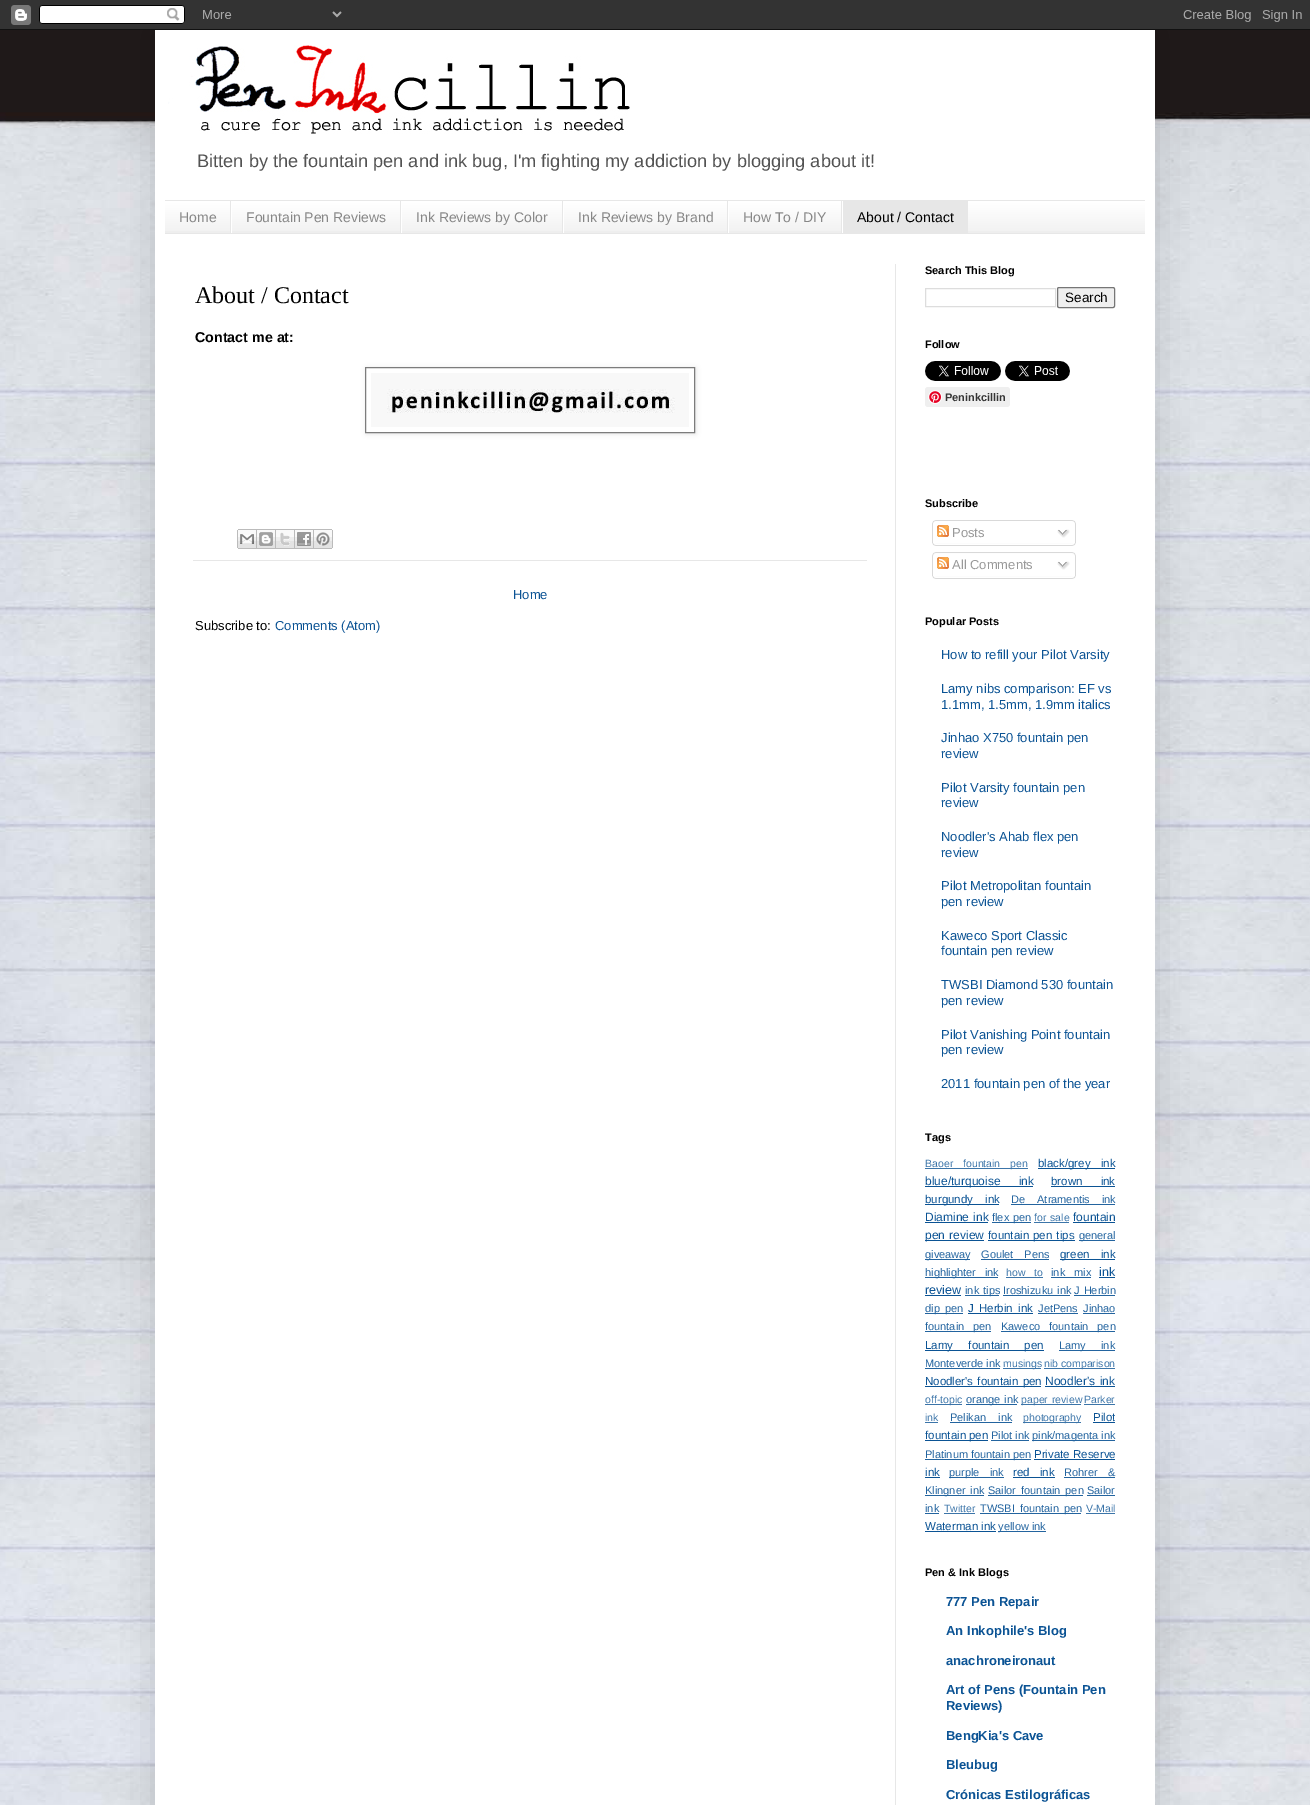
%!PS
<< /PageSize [1310 1805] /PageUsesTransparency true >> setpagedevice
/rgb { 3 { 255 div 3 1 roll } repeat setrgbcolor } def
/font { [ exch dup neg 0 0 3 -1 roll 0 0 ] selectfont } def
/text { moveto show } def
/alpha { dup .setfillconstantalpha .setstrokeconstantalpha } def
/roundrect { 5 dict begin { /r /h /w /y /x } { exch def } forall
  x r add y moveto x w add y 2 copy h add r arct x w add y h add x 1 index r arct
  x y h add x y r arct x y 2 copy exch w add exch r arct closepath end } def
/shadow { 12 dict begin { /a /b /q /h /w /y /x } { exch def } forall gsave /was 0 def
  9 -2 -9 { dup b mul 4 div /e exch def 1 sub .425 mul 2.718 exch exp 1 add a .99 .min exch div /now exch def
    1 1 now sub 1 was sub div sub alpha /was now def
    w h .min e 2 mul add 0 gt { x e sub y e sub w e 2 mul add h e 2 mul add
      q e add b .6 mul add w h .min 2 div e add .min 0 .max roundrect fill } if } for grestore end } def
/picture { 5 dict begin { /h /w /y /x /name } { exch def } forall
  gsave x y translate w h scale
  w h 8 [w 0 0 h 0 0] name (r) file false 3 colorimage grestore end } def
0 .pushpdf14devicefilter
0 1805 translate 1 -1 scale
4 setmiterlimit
31 25 25 rgb
0 0 1310 1805 rectfill
(img_01.rgb) 0 112 1310 1693 picture
0 0 0 rgb
155 30 1000 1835 0 20 0.15 shadow
(img_02.rgb) 0 0 1310 30 picture
255 255 255 rgb
155 30 1000 1775 rectfill
(img_03.rgb) 168 45 462 89 picture
238 238 238 rgb
165 202 980 31 rectfill
(img_04.rgb) 165 201 980 30 picture
231 231 231 rgb
165 200 980 1 rectfill
165 233 980 1 rectfill
230 201 1 32 rectfill
400 201 1 32 rectfill
255 255 255 rgb
231 201 1 32 rectfill
231 231 231 rgb
562 201 1 32 rectfill
255 255 255 rgb
401 201 1 32 rectfill
231 231 231 rgb
727 201 1 32 rectfill
255 255 255 rgb
563 201 1 32 rectfill
231 231 231 rgb
841 201 1 32 rectfill
255 255 255 rgb
728 201 1 32 rectfill
231 231 231 rgb
843 201 125 32 rectfill
255 255 255 rgb
842 201 1 32 rectfill
231 231 231 rgb
895 264 1 1541 rectfill
gsave
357 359 moveto 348 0 rlineto 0 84 rlineto -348 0 rlineto closepath 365 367 moveto 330 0 rlineto 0 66 rlineto -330 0 rlineto closepath eoclip newpath
0 0 0 rgb
366 368 330 66 0 2.5 0.1 shadow
grestore
124 124 124 rgb
365.5 367.5 329 65 rectstroke
(img_05.rgb) 371 373 318 54 picture
231 231 231 rgb
193 560 674 1 rectfill
(img_06.rgb) 237 529 20 20 picture
(img_07.rgb) 257 529 19 20 picture
(img_08.rgb) 276 529 19 20 picture
(img_09.rgb) 295 529 19 20 picture
(img_10.rgb) 314 529 19 20 picture
221 221 221 rgb
925.5 288.5 130 18 rectstroke
239 239 239 rgb
1057.5 287.5 57 20 1.5 roundrect gsave fill grestore
118 118 118 rgb
stroke
(img_11.rgb) 925 361 76 20 picture
(img_12.rgb) 1005 361 65 20 picture
239 239 239 rgb
925 387 85 20 3 roundrect fill
(img_13.rgb) 928 390 14 14 picture
(img_14.rgb) 932 520 144 23 picture
(img_15.rgb) 937 525 12 12 picture
(img_16.rgb) 1057 529 13 9 picture
(img_17.rgb) 932 543 144 3 picture
(img_18.rgb) 932 552 144 24 picture
(img_15.rgb) 937 557 12 12 picture
(img_16.rgb) 1057 561 13 9 picture
(img_17.rgb) 932 576 144 3 picture
60 117 169 rgb
925 1168 103 1 rectfill
11 83 148 rgb
1038 1168 77 1 rectfill
925 1186 108 1 rectfill
1051 1186 64 1 rectfill
925 1204 74 1 rectfill
35 100 159 rgb
1011 1204 104 1 rectfill
11 83 148 rgb
925 1222 63 1 rectfill
35 100 159 rgb
992 1222 39 1 rectfill
60 117 169 rgb
1034 1222 35 1 rectfill
11 83 148 rgb
1073 1222 42 1 rectfill
925 1240 59 1 rectfill
988 1240 87 1 rectfill
35 100 159 rgb
1079 1240 36 1 rectfill
925 1259 45 1 rectfill
981 1259 68 1 rectfill
11 83 148 rgb
1060 1259 55 1 rectfill
35 100 159 rgb
925 1277 73 1 rectfill
60 117 169 rgb
1006 1277 37 1 rectfill
35 100 159 rgb
1051 1277 40 1 rectfill
11 83 148 rgb
1099 1277 16 1 rectfill
925 1295 36 1 rectfill
35 100 159 rgb
965 1295 34 1 rectfill
1003 1295 67 1 rectfill
1074 1295 41 1 rectfill
925 1313 38 1 rectfill
11 83 148 rgb
968 1313 65 1 rectfill
35 100 159 rgb
1038 1313 40 1 rectfill
1083 1313 32 1 rectfill
925 1331 66 1 rectfill
1001 1331 114 1 rectfill
11 83 148 rgb
925 1350 119 1 rectfill
35 100 159 rgb
1059 1350 56 1 rectfill
925 1368 75 1 rectfill
60 117 169 rgb
1003 1368 38 1 rectfill
1044 1368 71 1 rectfill
11 83 148 rgb
925 1386 116 1 rectfill
1045 1386 70 1 rectfill
60 117 169 rgb
925 1404 37 1 rectfill
35 100 159 rgb
966 1404 51 1 rectfill
60 117 169 rgb
1021 1404 60 1 rectfill
1084 1404 31 1 rectfill
925 1422 13 1 rectfill
35 100 159 rgb
950 1422 62 1 rectfill
60 117 169 rgb
1023 1422 58 1 rectfill
11 83 148 rgb
1093 1422 22 1 rectfill
925 1440 63 1 rectfill
35 100 159 rgb
991 1440 38 1 rectfill
1032 1440 83 1 rectfill
925 1459 106 1 rectfill
11 83 148 rgb
1034 1459 81 1 rectfill
925 1477 15 1 rectfill
35 100 159 rgb
949 1477 55 1 rectfill
11 83 148 rgb
1013 1477 42 1 rectfill
35 100 159 rgb
1064 1477 51 1 rectfill
925 1495 59 1 rectfill
988 1495 95 1 rectfill
1087 1495 28 1 rectfill
925 1513 14 1 rectfill
60 117 169 rgb
944 1513 31 1 rectfill
35 100 159 rgb
980 1513 101 1 rectfill
60 117 169 rgb
1086 1513 29 1 rectfill
11 83 148 rgb
925 1531 71 1 rectfill
35 100 159 rgb
998 1531 48 1 rectfill
/LiberationSans-Regular 18.2 font
83 83 83 rgb
(Bitten by the fountain pen and ink bug, I'm fighting my addiction by blogging about it!) 197 167 text
/LiberationSans-Regular 14 font
135 135 135 rgb
(Home) 179 222 text
(Fountain Pen Reviews) 246 222 text
(Ink Reviews by Color) 416 222 text
(Ink Reviews by Brand) 578 222 text
(How To / DIY) 743 222 text
0 0 0 rgb
(About / Contact) 857 222 text
/LiberationSerif-Regular 24 font
(About / Contact) 195 303 text
/LiberationSans-Bold 14.25 font
(Contact me at:) 195 342 text
/LiberationSans-Regular 13 font
11 83 148 rgb
(Home) 513 599 text
0 0 0 rgb
(Subscribe to:) 195 630 text
11 83 148 rgb
(Comments \(Atom\)) 275 630 text
/LiberationSans-Bold 11 font
0 0 0 rgb
(Search This Blog) 925 274 text
/LiberationSans-Regular 13.5 font
(Search) 1065 302 text
/LiberationSans-Bold 11 font
(Follow) 925 348 text
54 54 54 rgb
(Peninkcillin) 945 401 text
0 0 0 rgb
(Subscribe) 925 507 text
/LiberationSans-Regular 13 font
153 153 153 rgb
(Posts) 952 537 text
(All Comments) 952 569 text
/LiberationSans-Bold 11 font
0 0 0 rgb
(Popular Posts) 925 625 text
/LiberationSans-Regular 13 font
11 83 148 rgb
(How to refill your Pilot Varsity) 941 659 text
(Lamy nibs comparison: EF vs) 941 693 text
(1.1mm, 1.5mm, 1.9mm italics) 941 709 text
(Jinhao X750 fountain pen) 941 742 text
(review) 941 758 text
(Pilot Varsity fountain pen) 941 792 text
(review) 941 807 text
(Noodler's Ahab flex pen) 941 841 text
(review) 941 857 text
(Pilot Metropolitan fountain) 941 890 text
(pen review) 941 906 text
(Kaweco Sport Classic) 941 940 text
(fountain pen review) 941 955 text
(TWSBI Diamond 530 fountain) 941 989 text
(pen review) 941 1005 text
(Pilot Vanishing Point fountain) 941 1039 text
(pen review) 941 1054 text
(2011 fountain pen of the year) 941 1088 text
/LiberationSans-Bold 11 font
0 0 0 rgb
(Tags) 925 1141 text
/LiberationSans-Regular 10.5 font
60 117 169 rgb
925 1167 moveto 7 0 32 (Baoer fountain pen) widthshow
/LiberationSans-Regular 11.5 font
11 83 148 rgb
1038 1167 moveto 7 0 32 (black/grey ink) widthshow
/LiberationSans-Regular 12 font
925 1185 moveto 15 0 32 (blue/turquoise ink) widthshow
/LiberationSans-Regular 11.5 font
1051 1185 moveto 15 0 32 (brown ink) widthshow
925 1203 moveto 9 0 32 (burgundy ink) widthshow
/LiberationSans-Regular 11 font
35 100 159 rgb
1011 1203 moveto 9 0 32 (De Atramentis ink) widthshow
/LiberationSans-Regular 12 font
11 83 148 rgb
925 1221 moveto 1 0 32 (Diamine ink) widthshow
/LiberationSans-Regular 11 font
35 100 159 rgb
992 1221 moveto 1 0 32 (flex pen) widthshow
/LiberationSans-Regular 10.5 font
60 117 169 rgb
1034 1221 moveto 1 0 32 (for sale) widthshow
/LiberationSans-Regular 12 font
11 83 148 rgb
(fountain) 1073 1221 text
925 1239 moveto 1 0 32 (pen review) widthshow
/LiberationSans-Regular 11.5 font
988 1239 moveto 1 0 32 (fountain pen tips) widthshow
/LiberationSans-Regular 11 font
35 100 159 rgb
(general) 1079 1239 text
(giveaway) 925 1258 text
981 1258 moveto 8 0 32 (Goulet Pens) widthshow
/LiberationSans-Regular 11.5 font
11 83 148 rgb
1060 1258 moveto 8 0 32 (green ink) widthshow
/LiberationSans-Regular 11 font
35 100 159 rgb
925 1276 moveto 6 0 32 (highlighter ink) widthshow
/LiberationSans-Regular 10.5 font
60 117 169 rgb
1006 1276 moveto 6 0 32 (how to) widthshow
/LiberationSans-Regular 11 font
35 100 159 rgb
1051 1276 moveto 6 0 32 (ink mix) widthshow
/LiberationSans-Regular 12.5 font
11 83 148 rgb
(ink) 1099 1276 text
(review) 925 1294 text
/LiberationSans-Regular 11 font
35 100 159 rgb
965 1294 moveto 1 0 32 (ink tips) widthshow
1003 1294 moveto 1 0 32 (Iroshizuku ink) widthshow
1074 1294 moveto 1 0 32 (J Herbin) widthshow
925 1312 moveto 2 0 32 (dip pen) widthshow
/LiberationSans-Regular 11.5 font
11 83 148 rgb
968 1312 moveto 2 0 32 (J Herbin ink) widthshow
/LiberationSans-Regular 11 font
35 100 159 rgb
(JetPens) 1038 1312 text
(Jinhao) 1083 1312 text
925 1330 moveto 6 0 32 (fountain pen) widthshow
1001 1330 moveto 6 0 32 (Kaweco fountain pen) widthshow
/LiberationSans-Regular 11.5 font
11 83 148 rgb
925 1349 moveto 12 0 32 (Lamy fountain pen) widthshow
/LiberationSans-Regular 11 font
35 100 159 rgb
1059 1349 moveto 12 0 32 (Lamy ink) widthshow
(Monteverde ink) 925 1367 text
/LiberationSans-Regular 10.5 font
60 117 169 rgb
(musings) 1003 1367 text
(nib comparison) 1044 1367 text
/LiberationSans-Regular 11.5 font
11 83 148 rgb
925 1385 moveto 1 0 32 (Noodler's fountain pen) widthshow
/LiberationSans-Regular 12 font
1045 1385 moveto 1 0 32 (Noodler's ink) widthshow
/LiberationSans-Regular 10.5 font
60 117 169 rgb
(off-topic) 925 1403 text
/LiberationSans-Regular 11 font
35 100 159 rgb
966 1403 moveto 1 0 32 (orange ink) widthshow
/LiberationSans-Regular 10.5 font
60 117 169 rgb
1021 1403 moveto 1 0 32 (paper review) widthshow
(Parker) 1084 1403 text
(ink) 925 1421 text
/LiberationSans-Regular 11 font
35 100 159 rgb
950 1421 moveto 9 0 32 (Pelikan ink) widthshow
/LiberationSans-Regular 10.5 font
60 117 169 rgb
(photography) 1023 1421 text
/LiberationSans-Regular 11.5 font
11 83 148 rgb
(Pilot) 1093 1421 text
(fountain pen) 925 1439 text
/LiberationSans-Regular 11 font
35 100 159 rgb
(Pilot ink) 991 1439 text
(pink/magenta ink) 1032 1439 text
(Platinum fountain pen) 925 1458 text
/LiberationSans-Regular 11.5 font
11 83 148 rgb
(Private Reserve) 1034 1458 text
(ink) 925 1476 text
/LiberationSans-Regular 11 font
35 100 159 rgb
949 1476 moveto 7 0 32 (purple ink) widthshow
/LiberationSans-Regular 11.5 font
11 83 148 rgb
1013 1476 moveto 7 0 32 (red ink) widthshow
/LiberationSans-Regular 11 font
35 100 159 rgb
1064 1476 moveto 7 0 32 (Rohrer &) widthshow
925 1494 moveto 2 0 32 (Klingner ink) widthshow
988 1494 moveto 2 0 32 (Sailor fountain pen) widthshow
(Sailor) 1087 1494 text
(ink) 925 1512 text
/LiberationSans-Regular 10.5 font
60 117 169 rgb
(Twitter) 944 1512 text
/LiberationSans-Regular 11 font
35 100 159 rgb
980 1512 moveto 2 0 32 (TWSBI fountain pen) widthshow
/LiberationSans-Regular 10.5 font
60 117 169 rgb
(V-Mail) 1086 1512 text
/LiberationSans-Regular 11.5 font
11 83 148 rgb
(Waterman ink) 925 1530 text
/LiberationSans-Regular 11 font
35 100 159 rgb
(yellow ink) 998 1530 text
/LiberationSans-Bold 11 font
0 0 0 rgb
(Pen & Ink Blogs) 925 1576 text
/LiberationSans-Bold 13 font
11 83 148 rgb
(777 Pen Repair) 946 1606 text
(An Inkophile's Blog) 946 1635 text
(anachroneironaut) 946 1665 text
(Art of Pens \(Fountain Pen) 946 1694 text
(Reviews\)) 946 1710 text
(BengKia's Cave) 946 1740 text
(Bleubug) 946 1769 text
(Crónicas Estilográficas) 946 1799 text
.poppdf14devicefilter showpage
